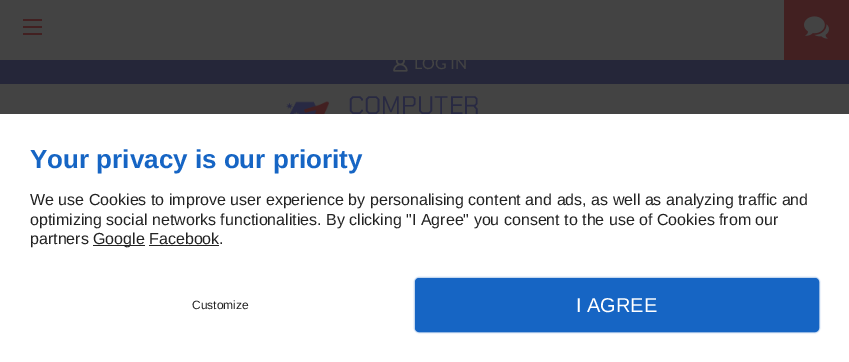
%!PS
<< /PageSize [849 362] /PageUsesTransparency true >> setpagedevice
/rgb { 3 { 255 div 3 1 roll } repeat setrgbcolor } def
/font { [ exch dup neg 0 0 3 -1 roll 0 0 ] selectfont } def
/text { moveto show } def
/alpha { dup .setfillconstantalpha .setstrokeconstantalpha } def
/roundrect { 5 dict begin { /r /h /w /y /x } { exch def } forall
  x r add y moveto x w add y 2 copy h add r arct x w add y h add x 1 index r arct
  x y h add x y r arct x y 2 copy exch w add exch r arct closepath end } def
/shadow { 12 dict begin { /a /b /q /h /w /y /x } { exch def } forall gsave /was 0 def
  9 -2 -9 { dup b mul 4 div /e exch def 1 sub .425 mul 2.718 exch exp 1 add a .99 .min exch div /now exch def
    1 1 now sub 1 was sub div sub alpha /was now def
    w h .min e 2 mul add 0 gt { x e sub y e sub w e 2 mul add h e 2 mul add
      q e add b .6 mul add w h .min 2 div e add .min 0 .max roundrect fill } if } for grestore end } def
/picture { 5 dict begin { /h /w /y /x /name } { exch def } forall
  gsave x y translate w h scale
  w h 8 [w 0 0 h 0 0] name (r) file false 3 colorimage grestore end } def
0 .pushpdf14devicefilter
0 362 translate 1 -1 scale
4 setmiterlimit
67 67 67 rgb
0 0 849 362 rectfill
66 32 33 rgb
23 33 19 2 rectfill
23 26 19 2 rectfill
23 19 19 2 rectfill
784 0 65 60 rectfill
(img_01.rgb) 804 16 25 23 picture
37 38 57 rgb
0 60 849 24 rectfill
(img_02.rgb) 393 60 15 12 picture
(img_03.rgb) 274 101 56 13 picture
255 255 255 rgb
0 114 849 248 rectfill
34 34 34 rgb
93 245 52 1 rectfill
149 245 70 1 rectfill
22 101 196 rgb
414 277 406 56 5 0.5 0.3 shadow
416 279 402 52 3 roundrect gsave fill grestore
2 setlinewidth
stroke
/Lato-Regular 16 font
67 67 67 rgb
(LOG IN) 414 69 text
/ChakraPetch-Regular 25.5 font
40 41 66 rgb
(COMPUTER) 348 114 text
/LiberationSans-Bold 26 font
22 101 196 rgb
(Your privacy is our priority) 30 168 text
/LiberationSans-Regular 16 font
34 34 34 rgb
(We use Cookies to improve user experience by personalising content and ads, as well as analyzing traffic and) 30 205 text
(optimizing social networks functionalities. By clicking "I Agree" you consent to the use of Cookies from our) 30 225 text
(partners) 30 244 text
(Google Facebook.) 93 244 text
/LiberationSans-Regular 12 font
(Customize) 192 309 text
/LiberationSans-Regular 20 font
255 255 255 rgb
(I AGREE) 576 312 text
.poppdf14devicefilter showpage
